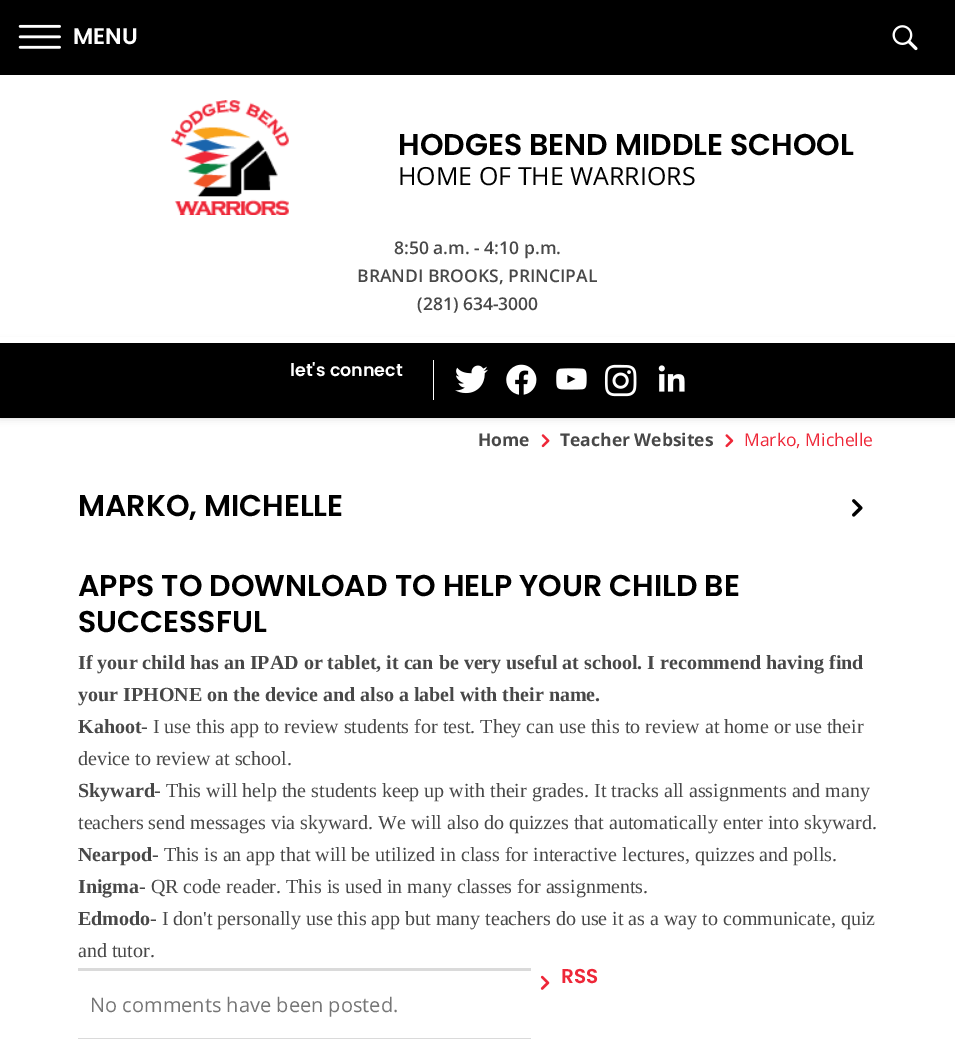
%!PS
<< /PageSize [955 1049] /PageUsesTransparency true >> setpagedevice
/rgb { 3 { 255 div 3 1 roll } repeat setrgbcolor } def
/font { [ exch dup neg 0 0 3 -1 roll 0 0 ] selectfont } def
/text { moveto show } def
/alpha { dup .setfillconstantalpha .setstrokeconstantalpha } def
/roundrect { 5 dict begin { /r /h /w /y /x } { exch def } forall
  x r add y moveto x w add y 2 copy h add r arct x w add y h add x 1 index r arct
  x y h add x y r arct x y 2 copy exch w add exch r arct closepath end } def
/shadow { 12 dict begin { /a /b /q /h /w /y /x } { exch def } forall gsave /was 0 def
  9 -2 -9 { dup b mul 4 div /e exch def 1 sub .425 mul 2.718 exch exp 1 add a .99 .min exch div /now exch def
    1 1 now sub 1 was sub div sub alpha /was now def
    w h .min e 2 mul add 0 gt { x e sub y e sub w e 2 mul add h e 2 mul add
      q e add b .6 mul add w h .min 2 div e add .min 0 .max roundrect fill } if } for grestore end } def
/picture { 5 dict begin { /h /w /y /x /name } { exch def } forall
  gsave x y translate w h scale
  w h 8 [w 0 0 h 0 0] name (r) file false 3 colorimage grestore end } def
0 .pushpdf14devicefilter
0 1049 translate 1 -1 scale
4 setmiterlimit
255 255 255 rgb
0 0 955 1049 rectfill
0 0 0 rgb
0 0 955 75 rectfill
(img_01.rgb) 18 24 43 25 picture
(img_02.rgb) 892 25 26 26 picture
0 343 955 75 0 4 0.16 shadow
255 255 255 rgb
0 337 955 6 rectfill
(img_03.rgb) 171 100 118 115 picture
0 0 0 rgb
0 343 955 75 rectfill
255 255 255 rgb
433 360 1 40 rectfill
(img_04.rgb) 455 365 33 29 picture
(img_05.rgb) 506 364 31 31 picture
(img_06.rgb) 556 368 31 22 picture
(img_07.rgb) 604 364 33 33 picture
(img_08.rgb) 658 365 27 27 picture
(img_09.rgb) 541 434 9 14 picture
(img_10.rgb) 725 434 9 14 picture
(img_11.rgb) 852 499 11 18 picture
(img_12.rgb) 540 975 10 15 picture
218 218 218 rgb
78 968 453 3 rectfill
78 1038 453 1 rectfill
/Poppins-SemiBold 22.5 font
255 255 255 rgb
(MENU) 73 44 text
/Poppins-SemiBold 30 font
0 0 0 rgb
(HODGES BEND MIDDLE SCHOOL) 398 155 text
/OpenSans-Regular 25 font
(HOME OF THE WARRIORS) 398 185 text
/OpenSans-SemiBold 17.5 font
72 72 72 rgb
(8:50 a.m. - 4:10 p.m.) 394 254 text
(BRANDI BROOKS, PRINCIPAL) 357 282 text
(\(281\) 634-3000) 417 310 text
/Poppins-SemiBold 17.5 font
255 255 255 rgb
(let's connect) 290 376 text
/OpenSans-Bold 17.5 font
72 72 72 rgb
(Home) 478 446 text
(Teacher Websites) 560 446 text
/OpenSans-Regular 17.5 font
238 39 56 rgb
(Marko, Michelle) 744 446 text
/Poppins-SemiBold 30 font
0 0 0 rgb
(MARKO, MICHELLE) 78 516 text
(APPS TO DOWNLOAD TO HELP YOUR CHILD BE) 78 596 text
(SUCCESSFUL) 78 632 text
/LiberationSerif-Bold 20 font
72 72 72 rgb
(If your child has an IPAD or tablet, it can be very useful at school. I recommend having find) 78 669 text
(your IPHONE on the device and also a label with their name.) 78 701 text
(Kahoot) 78 733 text
/LiberationSerif-Regular 20 font
(- I use this app to review students for test. They can use this to review at home or use their) 141 733 text
(device to review at school.) 78 765 text
/LiberationSerif-Bold 20 font
(Skyward) 78 797 text
/LiberationSerif-Regular 20 font
(- This will help the students keep up with their grades. It tracks all assignments and many) 154 797 text
(teachers send messages via skyward. We will also do quizzes that automatically enter into skyward.) 78 829 text
/LiberationSerif-Bold 20 font
(Nearpod) 78 861 text
/LiberationSerif-Regular 20 font
(- This is an app that will be utilized in class for interactive lectures, quizzes and polls.) 152 861 text
/LiberationSerif-Bold 20 font
(Inigma) 78 893 text
/LiberationSerif-Regular 20 font
(- QR code reader. This is used in many classes for assignments.) 139 893 text
/LiberationSerif-Bold 20 font
(Edmodo) 78 925 text
/LiberationSerif-Regular 20 font
(- I don't personally use this app but many teachers do use it as a way to communicate, quiz) 150 925 text
(and tutor.) 78 957 text
/Poppins-SemiBold 20 font
238 39 56 rgb
(RSS) 561 983 text
/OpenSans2-Regular 20 font
118 118 118 rgb
(No comments have been posted.) 90 1012 text
.poppdf14devicefilter showpage
